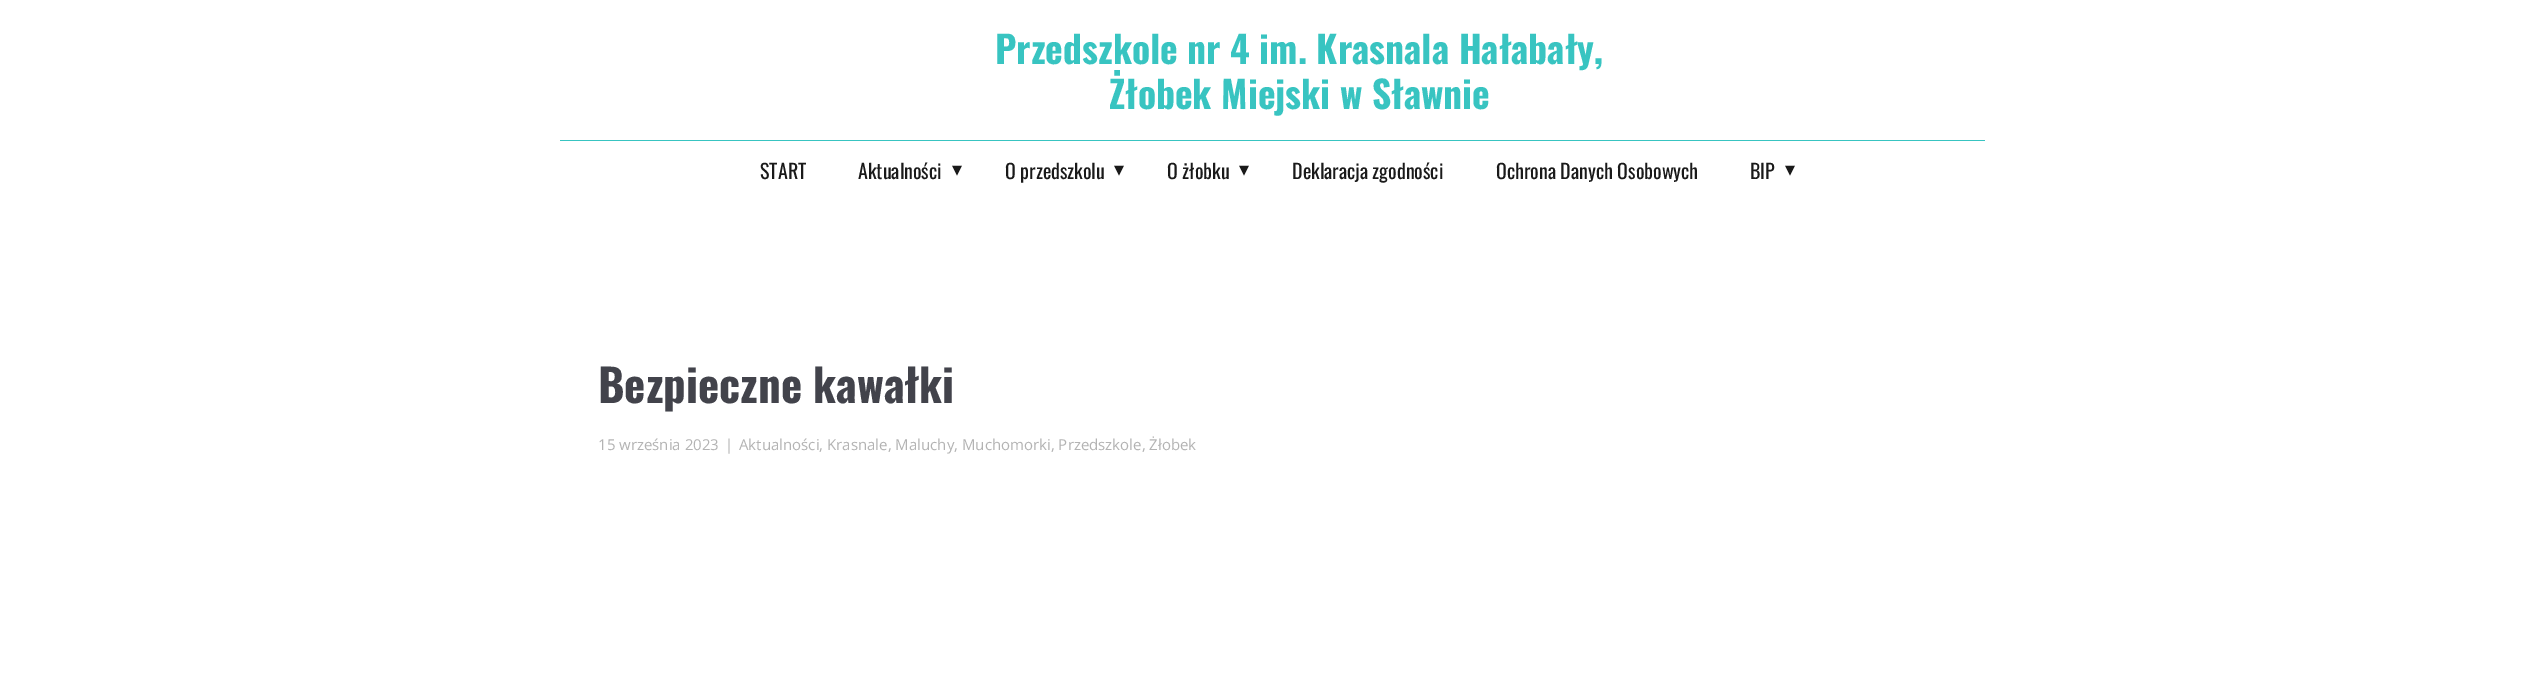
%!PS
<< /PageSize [2544 674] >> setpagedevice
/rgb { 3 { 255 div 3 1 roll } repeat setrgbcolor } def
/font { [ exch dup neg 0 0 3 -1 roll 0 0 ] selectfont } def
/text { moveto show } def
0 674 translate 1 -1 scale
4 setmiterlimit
255 255 255 rgb
0 0 2544 674 rectfill
56 196 193 rgb
560 140 1425 1 rectfill
/Oswald-Bold 37.5 font
(Przedszkole nr 4 im. Krasnala Hałabały,) 995 64 text
(Żłobek Miejski w Sławnie) 1109 109 text
/Oswald-Regular 20 font
26 26 26 rgb
(START) 760 179 text
(Aktualności) 858 179 text
/DejaVuSans-Regular 20 font
(▾) 952 176 text
/Oswald-Regular 20 font
(O przedszkolu) 1005 179 text
/DejaVuSans-Regular 20 font
(▾) 1114 176 text
/Oswald-Regular 20 font
(O żłobku) 1167 179 text
/DejaVuSans-Regular 20 font
(▾) 1239 176 text
/Oswald-Regular 20 font
(Deklaracja zgodności) 1292 179 text
(Ochrona Danych Osobowych) 1496 179 text
(BIP) 1750 179 text
/DejaVuSans-Regular 20 font
(▾) 1785 176 text
/Oswald-Bold 45 font
66 67 75 rgb
(Bezpieczne kawałki) 598 403 text
/OpenSans-Regular 15 font
179 179 179 rgb
(15 września 2023) 598 450 text
(|) 725 450 text
(Aktualności, Krasnale, Maluchy, Muchomorki, Przedszkole, Żłobek) 739 450 text
showpage
